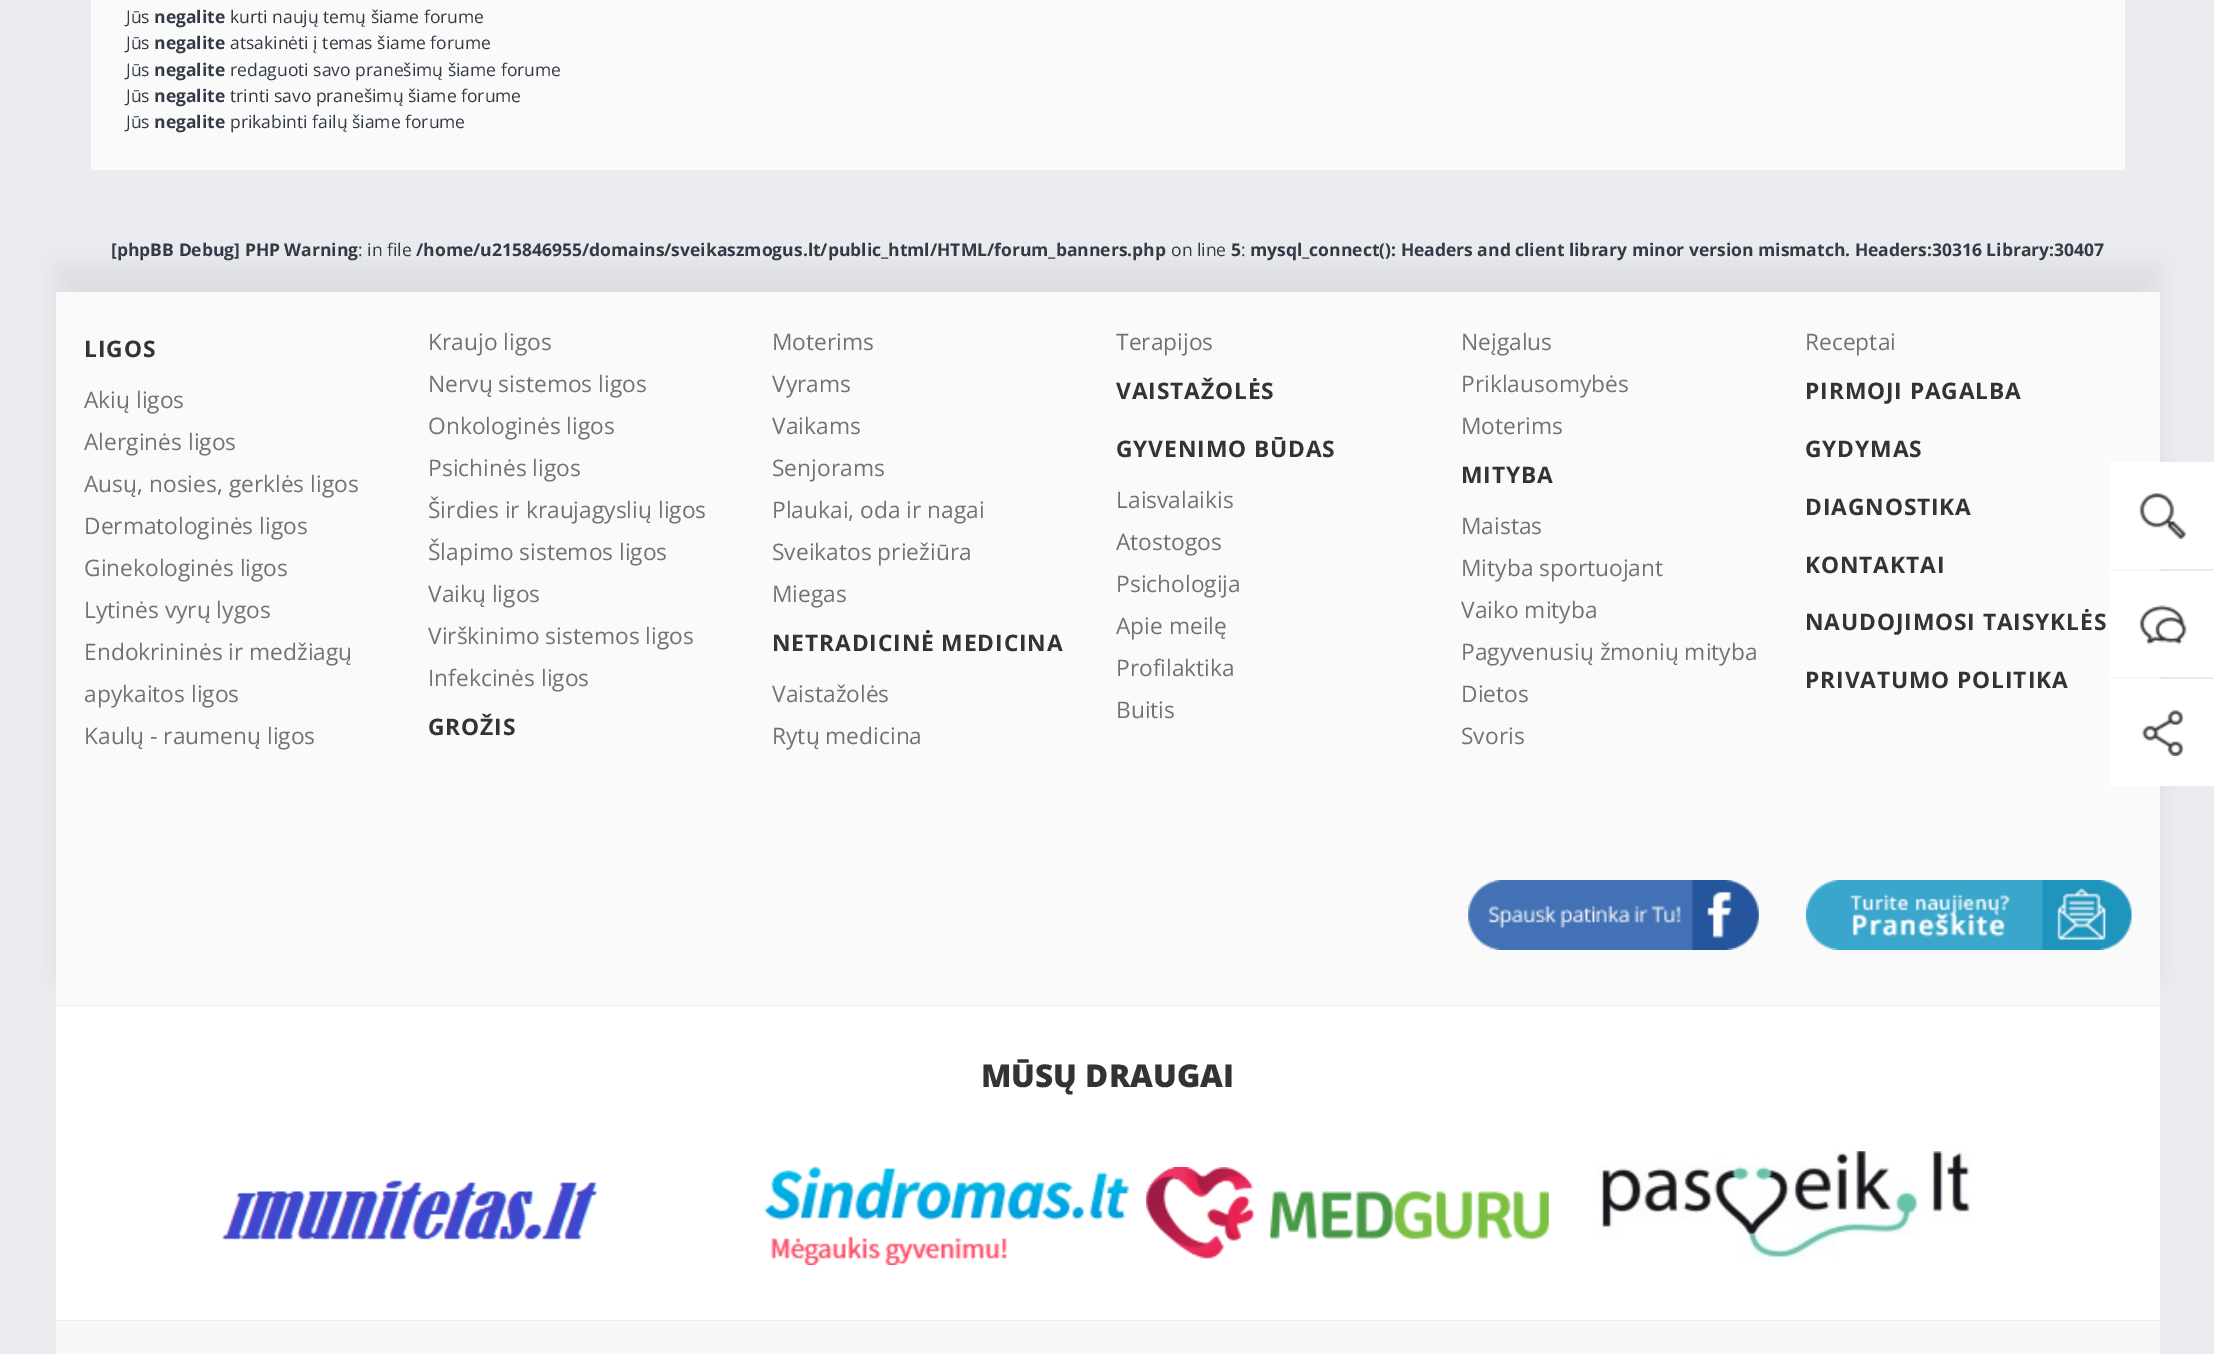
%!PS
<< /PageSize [2214 1354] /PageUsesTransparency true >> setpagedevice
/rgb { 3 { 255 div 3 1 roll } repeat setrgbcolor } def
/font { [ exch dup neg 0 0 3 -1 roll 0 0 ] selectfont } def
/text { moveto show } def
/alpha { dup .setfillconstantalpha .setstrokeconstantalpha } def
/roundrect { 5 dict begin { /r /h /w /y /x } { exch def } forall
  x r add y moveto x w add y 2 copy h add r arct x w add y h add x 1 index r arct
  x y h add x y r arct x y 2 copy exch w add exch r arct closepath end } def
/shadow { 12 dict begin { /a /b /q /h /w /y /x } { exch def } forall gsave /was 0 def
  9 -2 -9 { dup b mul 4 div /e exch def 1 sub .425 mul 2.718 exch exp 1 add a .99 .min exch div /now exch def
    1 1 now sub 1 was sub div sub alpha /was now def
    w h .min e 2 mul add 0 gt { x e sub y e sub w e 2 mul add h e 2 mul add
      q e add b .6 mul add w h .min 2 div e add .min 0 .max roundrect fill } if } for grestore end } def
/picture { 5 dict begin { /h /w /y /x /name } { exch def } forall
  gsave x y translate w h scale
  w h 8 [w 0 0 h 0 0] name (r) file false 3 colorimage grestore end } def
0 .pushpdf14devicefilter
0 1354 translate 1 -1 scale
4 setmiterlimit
234 236 240 rgb
0 0 2214 1354 rectfill
250 250 250 rgb
91 0 2034 170 rectfill
0 0 0 rgb
56 264 2104 714 0 14 0.05 shadow
250 250 250 rgb
56 292 2104 713 rectfill
236 236 236 rgb
56 1005 2104 1 rectfill
(img_01.rgb) 1468 880 291 70 picture
(img_02.rgb) 1806 880 326 70 picture
255 255 255 rgb
56 1006 2104 314 rectfill
236 236 236 rgb
56 1320 2104 1 rectfill
(img_03.rgb) 221 1180 377 60 picture
(img_04.rgb) 764 1166 365 99 picture
(img_05.rgb) 1146 1167 403 92 picture
(img_06.rgb) 1596 1151 376 109 picture
248 248 248 rgb
56 1321 2104 33 rectfill
255 255 255 rgb
2109 462 105 107 rectfill
(img_07.rgb) 2139 493 47 46 picture
2109 571 105 106 rectfill
(img_08.rgb) 2139 605 48 40 picture
2109 679 105 107 rectfill
(img_09.rgb) 2141 710 43 46 picture
/OpenSans-Regular 17.5 font
50 58 69 rgb
(Jūs) 126 23 text
/OpenSans-Bold 17.5 font
(negalite) 154 23 text
/OpenSans-Regular 17.5 font
(kurti naujų temų šiame forume) 230 23 text
(Jūs) 126 49 text
/OpenSans-Bold 17.5 font
(negalite) 154 49 text
/OpenSans-Regular 17.5 font
(atsakinėti į temas šiame forume) 230 49 text
(Jūs) 126 76 text
/OpenSans-Bold 17.5 font
(negalite) 154 76 text
/OpenSans-Regular 17.5 font
(redaguoti savo pranešimų šiame forume) 230 76 text
(Jūs) 126 102 text
/OpenSans-Bold 17.5 font
(negalite) 154 102 text
/OpenSans-Regular 17.5 font
(trinti savo pranešimų šiame forume) 230 102 text
(Jūs) 126 128 text
/OpenSans-Bold 17.5 font
(negalite) 154 128 text
/OpenSans-Regular 17.5 font
(prikabinti failų šiame forume) 230 128 text
/OpenSans-Bold 17.5 font
([phpBB Debug] PHP Warning) 111 256 text
/OpenSans-Regular 17.5 font
(: in file) 358 256 text
/OpenSans-Bold 17.5 font
(/home/u215846955/domains/sveikaszmogus.lt/public_html/HTML/forum_banners.php) 416 256 text
/OpenSans-Regular 17.5 font
(on line) 1171 256 text
/OpenSans-Bold 17.5 font
(5) 1231 256 text
/OpenSans-Regular 17.5 font
(:) 1241 256 text
/OpenSans-Bold 17.5 font
(mysql_connect\(\): Headers and client library minor version mismatch. Headers:30316 Library:30407) 1250 256 text
/OpenSans-Bold 22.75 font
51 51 51 rgb
84 357 moveto 0.9 0 (LIGOS) ashow
/OpenSans-Regular 22.75 font
114 114 114 rgb
(Kraujo ligos) 428 350 text
(Moterims) 772 350 text
(Terapijos) 1116 350 text
(Neįgalus) 1461 350 text
(Receptai) 1805 350 text
(Akių ligos) 84 408 text
(Nervų sistemos ligos) 428 392 text
(Vyrams) 772 392 text
/OpenSans-Bold 22.75 font
51 51 51 rgb
1116 399 moveto 0.9 0 (VAISTAŽOLĖS) ashow
/OpenSans-Regular 22.75 font
114 114 114 rgb
(Priklausomybės) 1461 392 text
/OpenSans-Bold 22.75 font
51 51 51 rgb
1805 399 moveto 0.9 0 (PIRMOJI PAGALBA) ashow
/OpenSans-Regular 22.75 font
114 114 114 rgb
(Onkologinės ligos) 428 434 text
(Vaikams) 772 434 text
(Moterims) 1461 434 text
(Alerginės ligos) 84 450 text
/OpenSans-Bold 22.75 font
51 51 51 rgb
1116 457 moveto 0.9 0 (GYVENIMO BŪDAS) ashow
1805 457 moveto 0.9 0 (GYDYMAS) ashow
/OpenSans-Regular 22.75 font
114 114 114 rgb
(Ausų, nosies, gerklės ligos) 84 492 text
(Psichinės ligos) 428 476 text
(Senjorams) 772 476 text
(Laisvalaikis) 1116 508 text
/OpenSans-Bold 22.75 font
51 51 51 rgb
1461 483 moveto 0.9 0 (MITYBA) ashow
/OpenSans-Regular 22.75 font
114 114 114 rgb
(Širdies ir kraujagyslių ligos) 428 518 text
(Plaukai, oda ir nagai) 772 518 text
/OpenSans-Bold 22.75 font
51 51 51 rgb
1805 515 moveto 0.9 0 (DIAGNOSTIKA) ashow
/OpenSans-Regular 22.75 font
114 114 114 rgb
(Dermatologinės ligos) 84 534 text
(Maistas) 1461 534 text
(Ginekologinės ligos) 84 576 text
(Šlapimo sistemos ligos) 428 560 text
(Sveikatos priežiūra) 772 560 text
(Atostogos) 1116 550 text
(Mityba sportuojant) 1461 576 text
/OpenSans-Bold 22.75 font
51 51 51 rgb
1805 573 moveto 0.9 0 (KONTAKTAI) ashow
/OpenSans-Regular 22.75 font
114 114 114 rgb
(Vaikų ligos) 428 602 text
(Miegas) 772 602 text
(Psichologija) 1116 592 text
(Lytinės vyrų lygos) 84 618 text
(Virškinimo sistemos ligos) 428 644 text
/OpenSans-Bold 22.75 font
51 51 51 rgb
772 651 moveto 0.9 0 (NETRADICINĖ MEDICINA) ashow
/OpenSans-Regular 22.75 font
114 114 114 rgb
(Apie meilę) 1116 634 text
(Vaiko mityba) 1461 618 text
/OpenSans-Bold 22.75 font
51 51 51 rgb
1805 630 moveto 0.9 0 (NAUDOJIMOSI TAISYKLĖS) ashow
/OpenSans-Regular 22.75 font
114 114 114 rgb
(Endokrininės ir medžiagų) 84 660 text
(apykaitos ligos) 84 702 text
(Infekcinės ligos) 428 686 text
(Profilaktika) 1116 676 text
(Pagyvenusių žmonių mityba) 1461 660 text
/OpenSans-Bold 22.75 font
51 51 51 rgb
1805 688 moveto 0.9 0 (PRIVATUMO POLITIKA) ashow
/OpenSans-Regular 22.75 font
114 114 114 rgb
(Vaistažolės) 772 702 text
(Dietos) 1461 702 text
(Buitis) 1116 718 text
(Kaulų - raumenų ligos) 84 744 text
/OpenSans-Bold 22.75 font
51 51 51 rgb
428 735 moveto 0.9 0 (GROŽIS) ashow
/OpenSans-Regular 22.75 font
114 114 114 rgb
(Rytų medicina) 772 744 text
(Svoris) 1461 744 text
/OpenSans-ExtraBold 31.5 font
51 51 51 rgb
(MŪSŲ DRAUGAI) 981 1087 text
.poppdf14devicefilter showpage
